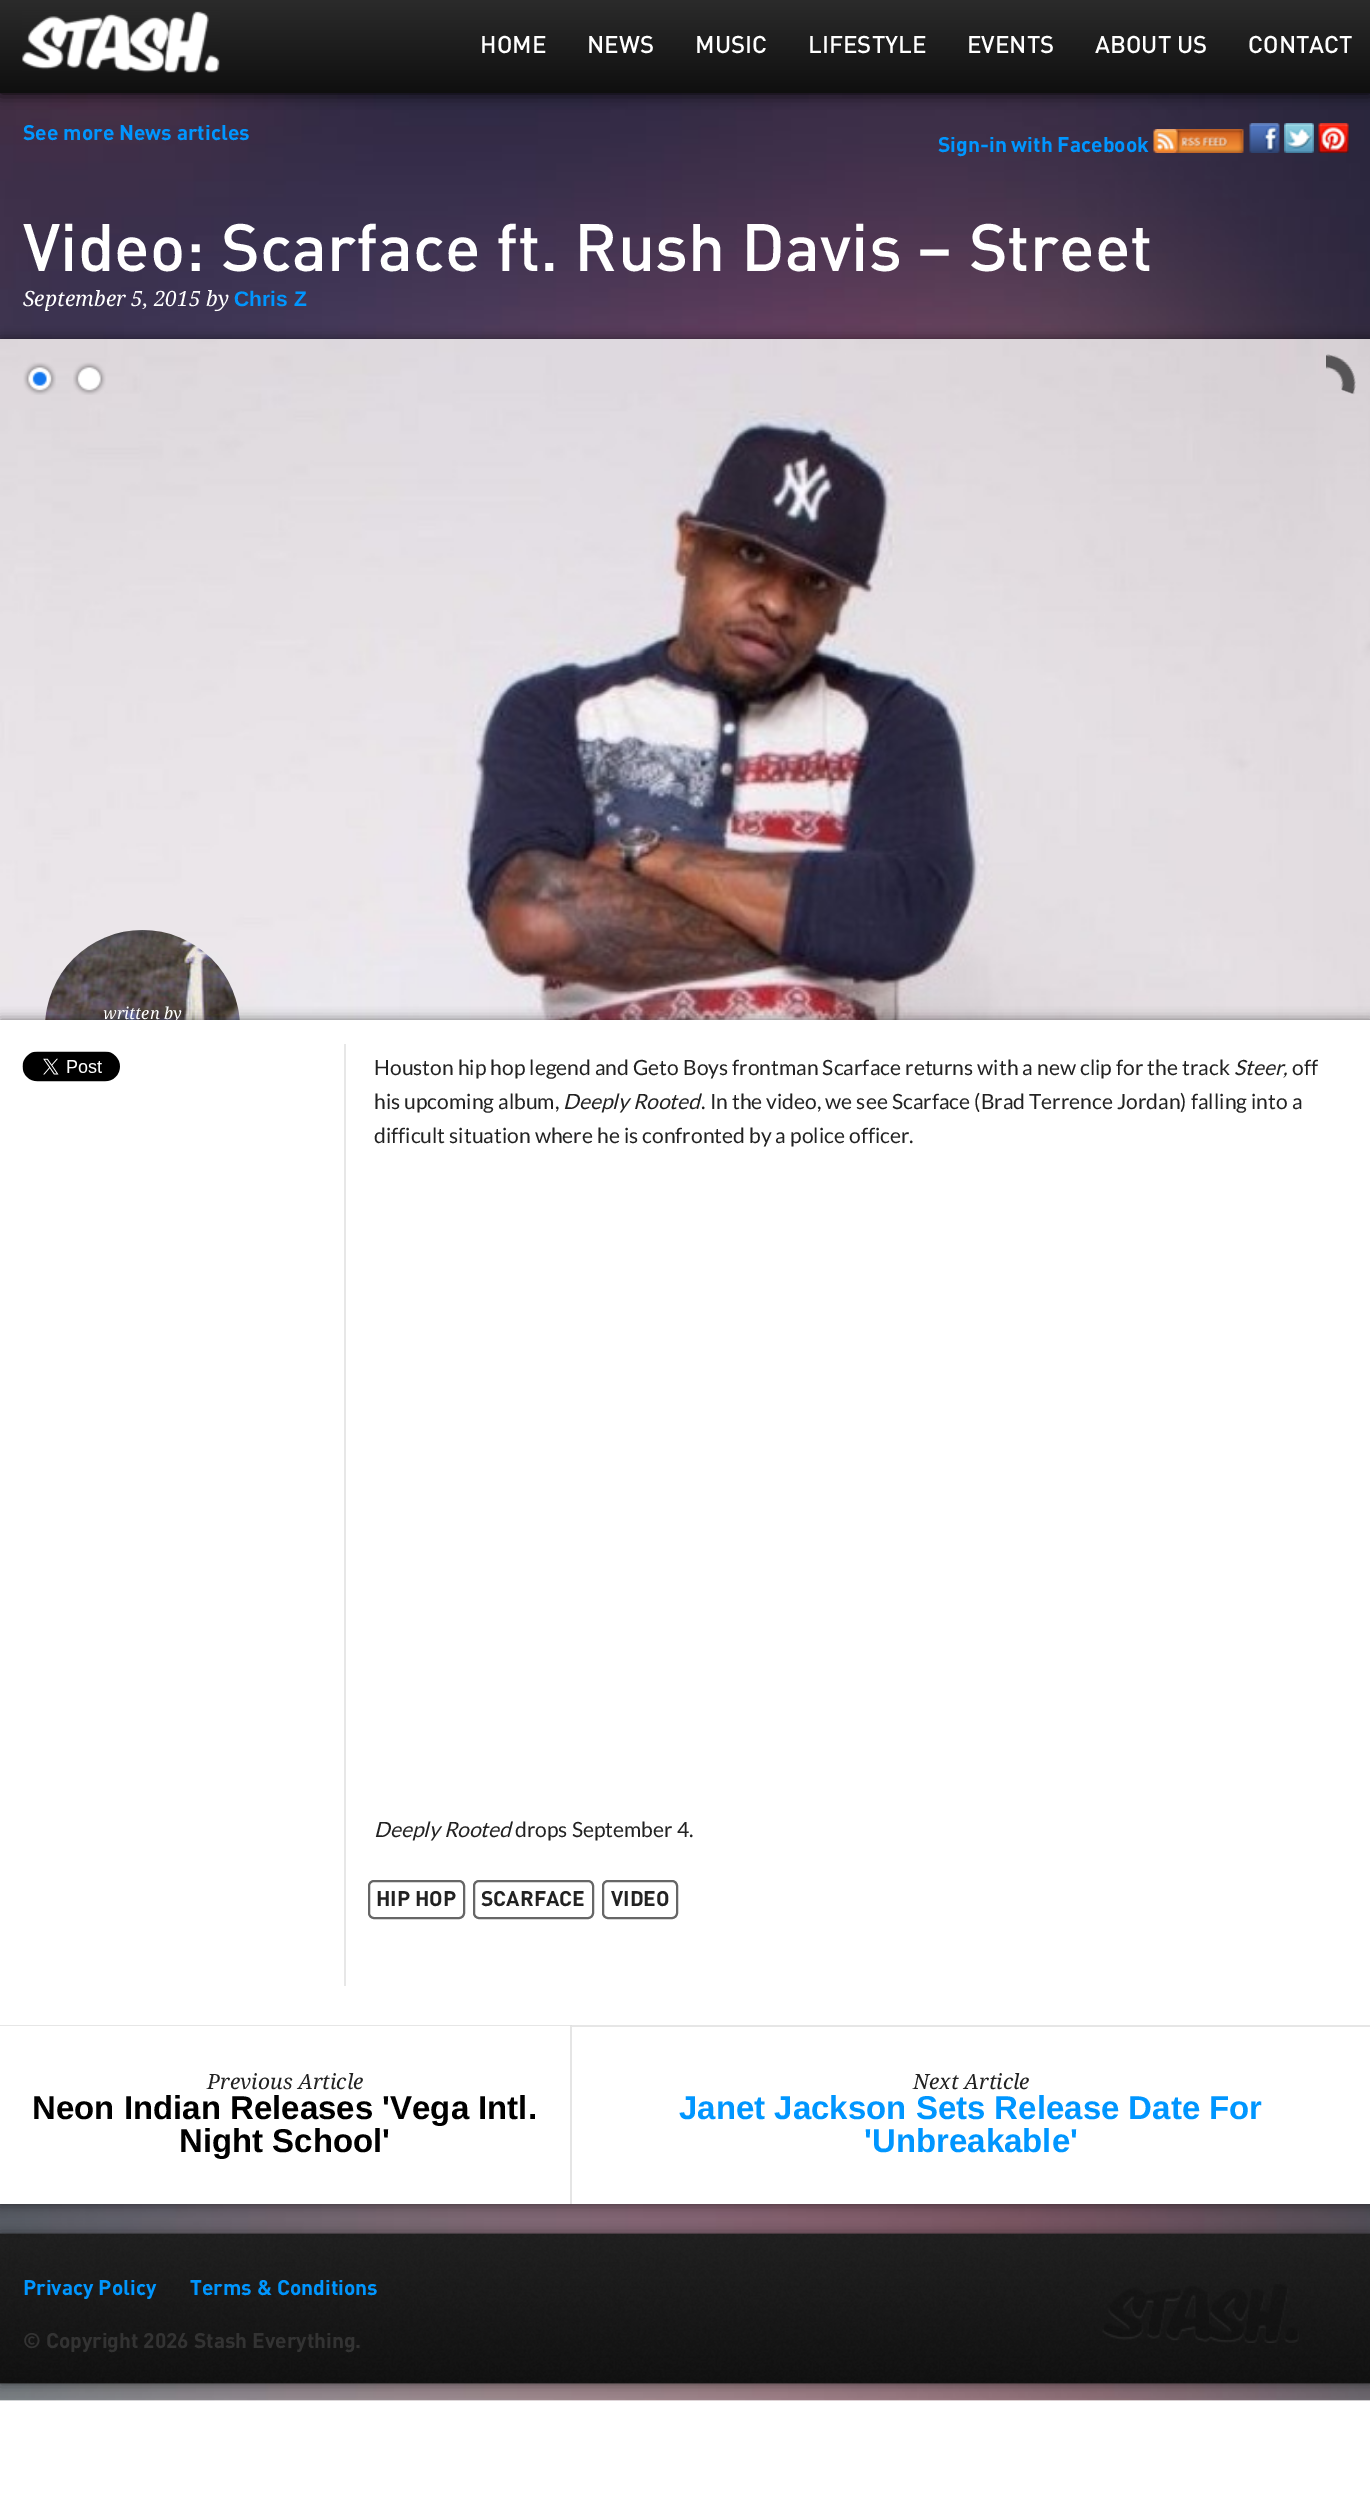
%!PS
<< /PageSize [1370 2500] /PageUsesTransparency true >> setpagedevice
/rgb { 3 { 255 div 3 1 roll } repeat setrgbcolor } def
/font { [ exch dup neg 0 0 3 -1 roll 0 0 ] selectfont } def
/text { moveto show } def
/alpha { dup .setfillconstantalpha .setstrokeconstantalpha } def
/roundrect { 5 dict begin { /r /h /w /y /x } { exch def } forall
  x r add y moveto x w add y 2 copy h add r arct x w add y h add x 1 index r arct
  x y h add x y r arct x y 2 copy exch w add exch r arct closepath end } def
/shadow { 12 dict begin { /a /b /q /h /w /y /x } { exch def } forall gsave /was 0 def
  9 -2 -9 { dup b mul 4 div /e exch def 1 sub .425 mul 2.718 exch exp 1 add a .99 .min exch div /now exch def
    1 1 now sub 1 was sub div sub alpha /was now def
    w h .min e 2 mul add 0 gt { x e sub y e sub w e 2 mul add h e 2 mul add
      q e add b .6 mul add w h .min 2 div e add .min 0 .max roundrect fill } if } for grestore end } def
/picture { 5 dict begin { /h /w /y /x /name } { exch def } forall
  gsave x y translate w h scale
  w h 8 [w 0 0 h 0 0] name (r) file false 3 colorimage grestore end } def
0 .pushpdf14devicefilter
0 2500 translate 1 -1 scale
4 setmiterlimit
255 255 255 rgb
0 0 1370 2500 rectfill
(img_01.rgb) 0 93 1370 2308 picture
(img_02.rgb) 0 2399 1370 2 picture
0 0 0 rgb
0 0 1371 93 0 7.5 1 shadow
gsave 0 0 moveto 1370 0 rlineto 0 93 rlineto -1370 0 rlineto closepath clip newpath
<< /ShadingType 2 /ColorSpace /DeviceRGB /Coords [686 0 686 93] /Extend [true true] /Function << /FunctionType 2 /Domain [0 1] /C0 [0.169 0.169 0.169] /C1 [0.059 0.059 0.059] /N 1 >> >> shfill grestore
(img_03.rgb) 22 11 198 62 picture
(img_04.rgb) 1153 129 91 24 picture
(img_05.rgb) 1249 123 31 30 picture
(img_06.rgb) 1284 123 30 30 picture
(img_07.rgb) 1318 123 31 30 picture
0 339 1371 686 0 6 0.5 shadow
(img_08.rgb) 0 339 1370 681 picture
(img_09.rgb) 23 362 33 33 picture
(img_10.rgb) 73 362 33 33 picture
(img_11.rgb) 1326 354 30 41 picture
(img_12.rgb) 45 930 195 90 picture
0 1020 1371 1184 0 6 0.5 shadow
255 255 255 rgb
0 1020 1370 1184 rectfill
(img_13.rgb) 22 1051 98 31 picture
231 231 231 rgb
344 1044 2 942 rectfill
102 102 102 rgb
2 setlinewidth
369 1881 95 37 5 roundrect stroke
474 1881 119 37 5 roundrect stroke
603 1881 74 37 5 roundrect stroke
230 230 230 rgb
0 2025 moveto 572 0 rlineto -2 1 rlineto -570 0 rlineto closepath fill
0.1 alpha
0 0 0 rgb
572 2025 moveto 0 179 rlineto -2 0 rlineto 0 -178 rlineto closepath fill
1 alpha
230 230 230 rgb
572 2025 798 2 rectfill
0 0 0 rgb
0 2234 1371 150 0 6 0.5 shadow
(img_14.rgb) 0 2233 1370 151 picture
(img_15.rgb) 1102 2284 197 59 picture
/DIN-Medium 24 font
255 255 255 rgb
(HOME) 480 53 text
(NEWS) 587 53 text
(MUSIC) 695 53 text
(LIFESTYLE) 808 53 text
(EVENTS) 967 53 text
(ABOUT US) 1095 53 text
(CONTACT) 1248 53 text
/DIN-Bold 21 font
0 150 255 rgb
(See more News articles) 23 140 text
(Sign-in with Facebook) 938 152 text
/DIN-Medium 66 font
255 255 255 rgb
(Video: Scarface ft. Rush Davis – Street) 23 271 text
/DroidSerif-Italic 21 font
(September 5, 2015 by) 23 306 text
/LiberationSans-Bold 21 font
0 150 255 rgb
(Chris Z) 234 306 text
/DroidSerif-Italic 16.5 font
255 255 255 rgb
(written by) 103 1019 text
/Lato-Regular 21 font
34 34 34 rgb
(Houston hip hop legend and Geto Boys frontman Scarface returns with a new clip for the track) 374 1075 text
/Lato-Italic 21 font
(Steer,) 1234 1075 text
/Lato-Regular 21 font
(off) 1292 1075 text
(his upcoming album,) 374 1109 text
/Lato-Italic 21 font
(Deeply Rooted) 563 1109 text
/Lato-Regular 21 font
(. In the video, we see Scarface \(Brad Terrence Jordan\) falling into a) 701 1109 text
(difficult situation where he is confronted by a police officer.) 374 1143 text
/Lato-Italic 21 font
(Deeply Rooted) 374 1837 text
/Lato-Regular 21 font
(drops September 4.) 515 1837 text
/DIN-Bold 21 font
(HIP HOP) 376 1906 text
(SCARFACE) 481 1906 text
(VIDEO) 611 1906 text
/DroidSerif-Italic 21 font
(Previous Article) 207 2089 text
/LiberationSans-Bold 33 font
0 0 0 rgb
(Neon Indian Releases 'Vega Intl.) 32 2119 text
(Night School') 179 2152 text
/DroidSerif-Italic 21 font
34 34 34 rgb
(Next Article) 913 2089 text
/LiberationSans-Bold 33 font
0 150 255 rgb
(Janet Jackson Sets Release Date For) 679 2119 text
('Unbreakable') 864 2152 text
/DIN-Bold 21 font
(Privacy Policy) 23 2295 text
(Terms & Conditions) 190 2295 text
51 51 51 rgb
(© Copyright 2026 Stash Everything.) 23 2348 text
.poppdf14devicefilter showpage
